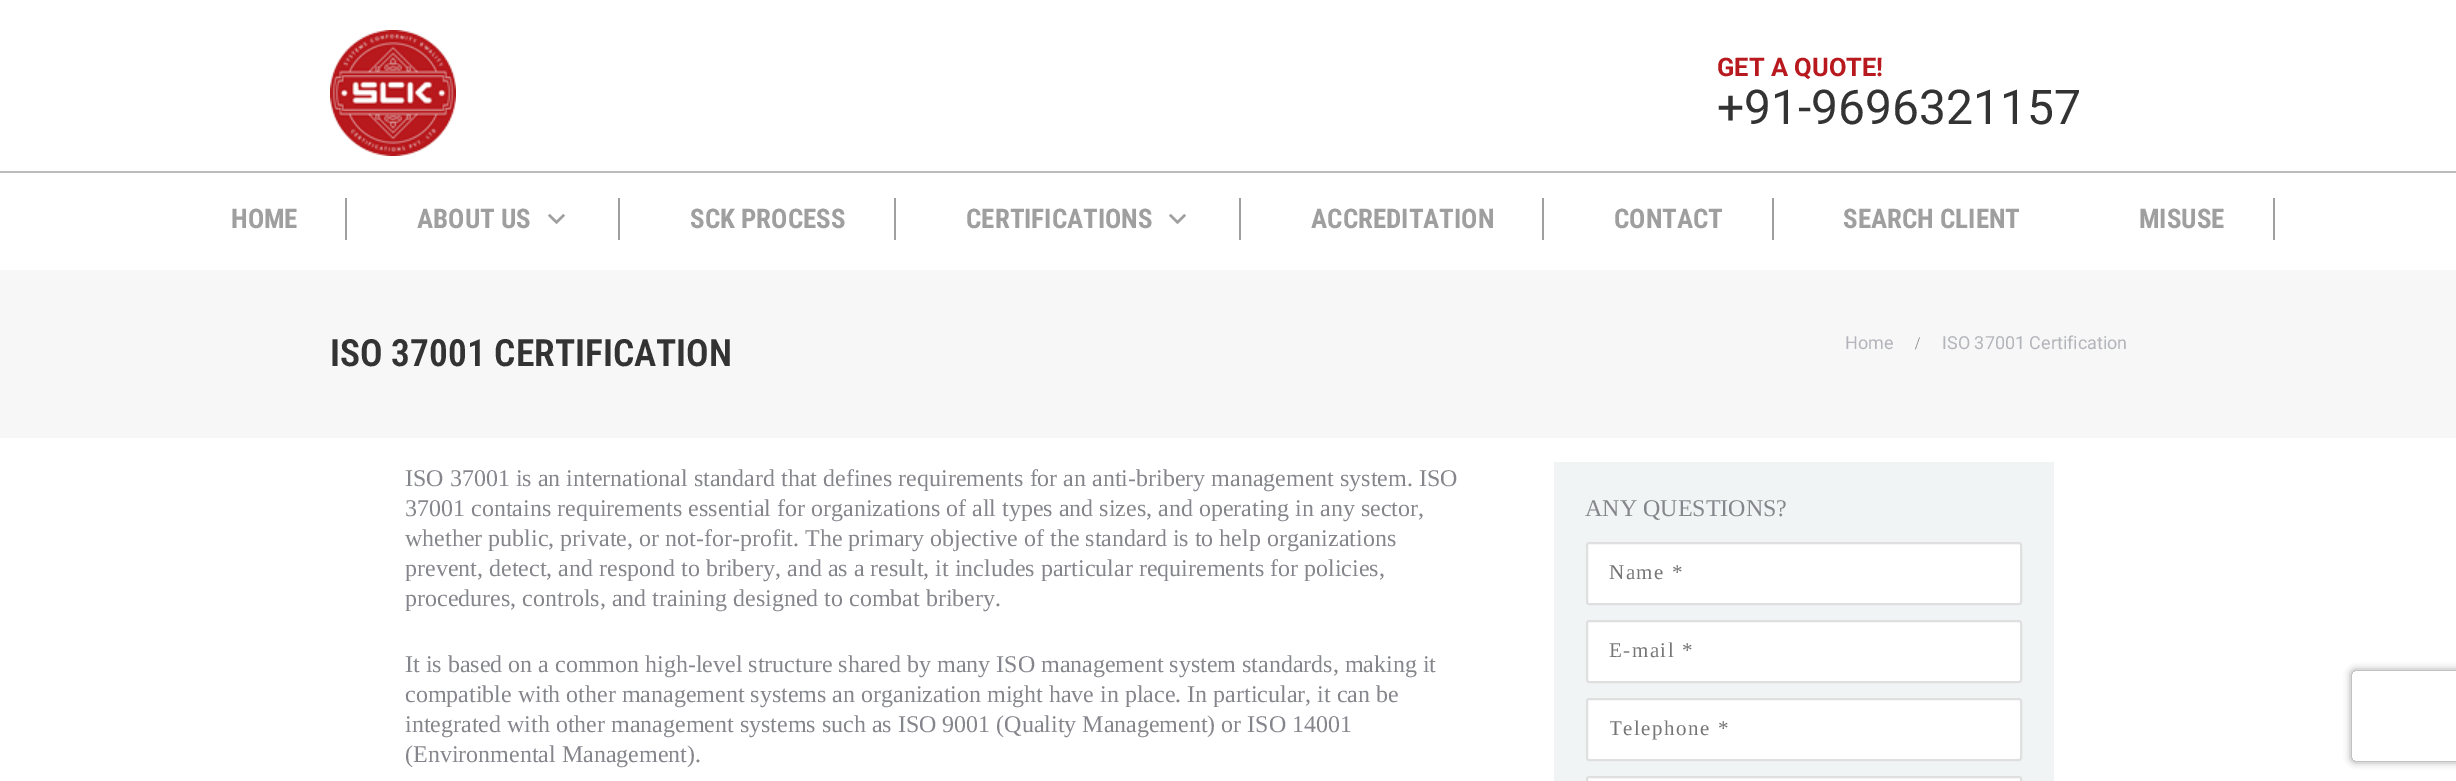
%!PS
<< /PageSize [2456 781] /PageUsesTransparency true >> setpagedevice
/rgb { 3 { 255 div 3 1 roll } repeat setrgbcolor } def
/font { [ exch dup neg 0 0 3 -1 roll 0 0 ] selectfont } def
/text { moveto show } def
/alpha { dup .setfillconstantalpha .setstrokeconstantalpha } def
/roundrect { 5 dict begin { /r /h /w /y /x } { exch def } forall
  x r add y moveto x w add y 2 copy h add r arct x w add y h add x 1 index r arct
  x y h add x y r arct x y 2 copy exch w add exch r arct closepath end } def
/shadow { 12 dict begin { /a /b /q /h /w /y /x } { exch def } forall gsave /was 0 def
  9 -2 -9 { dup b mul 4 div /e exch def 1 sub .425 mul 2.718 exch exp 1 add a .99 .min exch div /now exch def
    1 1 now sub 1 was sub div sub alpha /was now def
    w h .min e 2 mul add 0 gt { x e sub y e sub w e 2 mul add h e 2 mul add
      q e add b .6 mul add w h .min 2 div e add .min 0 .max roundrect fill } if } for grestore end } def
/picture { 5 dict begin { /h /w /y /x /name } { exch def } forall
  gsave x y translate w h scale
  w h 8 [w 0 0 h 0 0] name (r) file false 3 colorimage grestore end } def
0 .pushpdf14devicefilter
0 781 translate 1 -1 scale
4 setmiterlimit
255 255 255 rgb
0 0 2456 781 rectfill
187 188 188 rgb
0 171 2456 2 rectfill
(img_01.rgb) 330 30 126 126 picture
159 159 159 rgb
345 198 2 42 rectfill
618 198 2 42 rectfill
(img_02.rgb) 548 214 17 10 picture
894 198 2 42 rectfill
1239 198 2 42 rectfill
(img_02.rgb) 1169 214 17 10 picture
1542 198 2 42 rectfill
1772 198 2 42 rectfill
2273 198 2 42 rectfill
247 247 247 rgb
0 270 2456 168 rectfill
241 244 245 rgb
1554 462 500 319 rectfill
255 255 255 rgb
1588 544 432 59 rectfill
223 223 223 rgb
2 setlinewidth
1587 543 434 61 2 roundrect stroke
255 255 255 rgb
1588 622 432 59 rectfill
223 223 223 rgb
1587 621 434 61 2 roundrect stroke
255 255 255 rgb
1588 700 432 59 rectfill
223 223 223 rgb
1587 699 434 61 2 roundrect stroke
255 255 255 rgb
1587 778 434 3 rectfill
223 223 223 rgb
1587 777 434 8 2 roundrect stroke
gsave
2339 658 moveto 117 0 rlineto 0 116 rlineto -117 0 rlineto closepath 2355 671 moveto 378 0 rlineto 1.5 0 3 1.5 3 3 rcurveto 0 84 rlineto 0 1.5 -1.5 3 -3 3 rcurveto -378 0 rlineto -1.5 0 -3 -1.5 -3 -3 rcurveto 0 -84 rlineto 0 -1.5 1.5 -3 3 -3 rcurveto closepath eoclip newpath
128 128 128 rgb
2352 671 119 90 3 4 1 shadow
grestore
/Roboto-Bold 25.5 font
184 25 30 rgb
(GET A QUOTE!) 1717 76 text
/Roboto-Regular 48 font
51 51 51 rgb
(+91-9696321157) 1717 124 text
/RobotoCondensed-Bold 27 font
159 159 159 rgb
(HOME) 231 228 text
(ABOUT US) 417 228 text
(SCK PROCESS) 690 228 text
(CERTIFICATIONS) 966 228 text
(ACCREDITATION) 1311 228 text
(CONTACT) 1614 228 text
(SEARCH CLIENT) 1843 228 text
(MISUSE) 2139 228 text
/RobotoCondensed-SemiBold 37.5 font
51 51 51 rgb
(ISO 37001 CERTIFICATION) 330 366 text
/Roboto-Regular 18 font
180 181 187 rgb
(Home) 1845 349 text
/LiberationSerif-Regular 18 font
133 134 140 rgb
(/) 1915 349 text
/Roboto-Regular 18 font
180 181 187 rgb
(ISO 37001 Certification) 1942 349 text
/LiberationSerif-Regular 24 font
133 134 140 rgb
(ISO 37001 is an international standard that defines requirements for an anti-bribery management system. ISO) 405 486 text
(37001 contains requirements essential for organizations of all types and sizes, and operating in any sector,) 405 516 text
(whether public, private, or not-for-profit. The primary objective of the standard is to help organizations) 405 546 text
(prevent, detect, and respond to bribery, and as a result, it includes particular requirements for policies,) 405 576 text
(procedures, controls, and training designed to combat bribery.) 405 606 text
(It is based on a common high-level structure shared by many ISO management system standards, making it) 405 672 text
(compatible with other management systems an organization might have in place. In particular, it can be) 405 702 text
(integrated with other management systems such as ISO 9001 \(Quality Management\) or ISO 14001) 405 732 text
(\(Environmental Management\).) 405 762 text
(ANY QUESTIONS?) 1585 516 text
/LiberationSerif-Regular 21 font
118 118 118 rgb
1609 579 moveto 1.5 0 (Name *) ashow
1609 657 moveto 1.5 0 (E-mail *) ashow
gsave
1610 717 388 24 rectclip
1609 735 moveto 1.5 0 (Telephone *) ashow
grestore
.poppdf14devicefilter showpage
